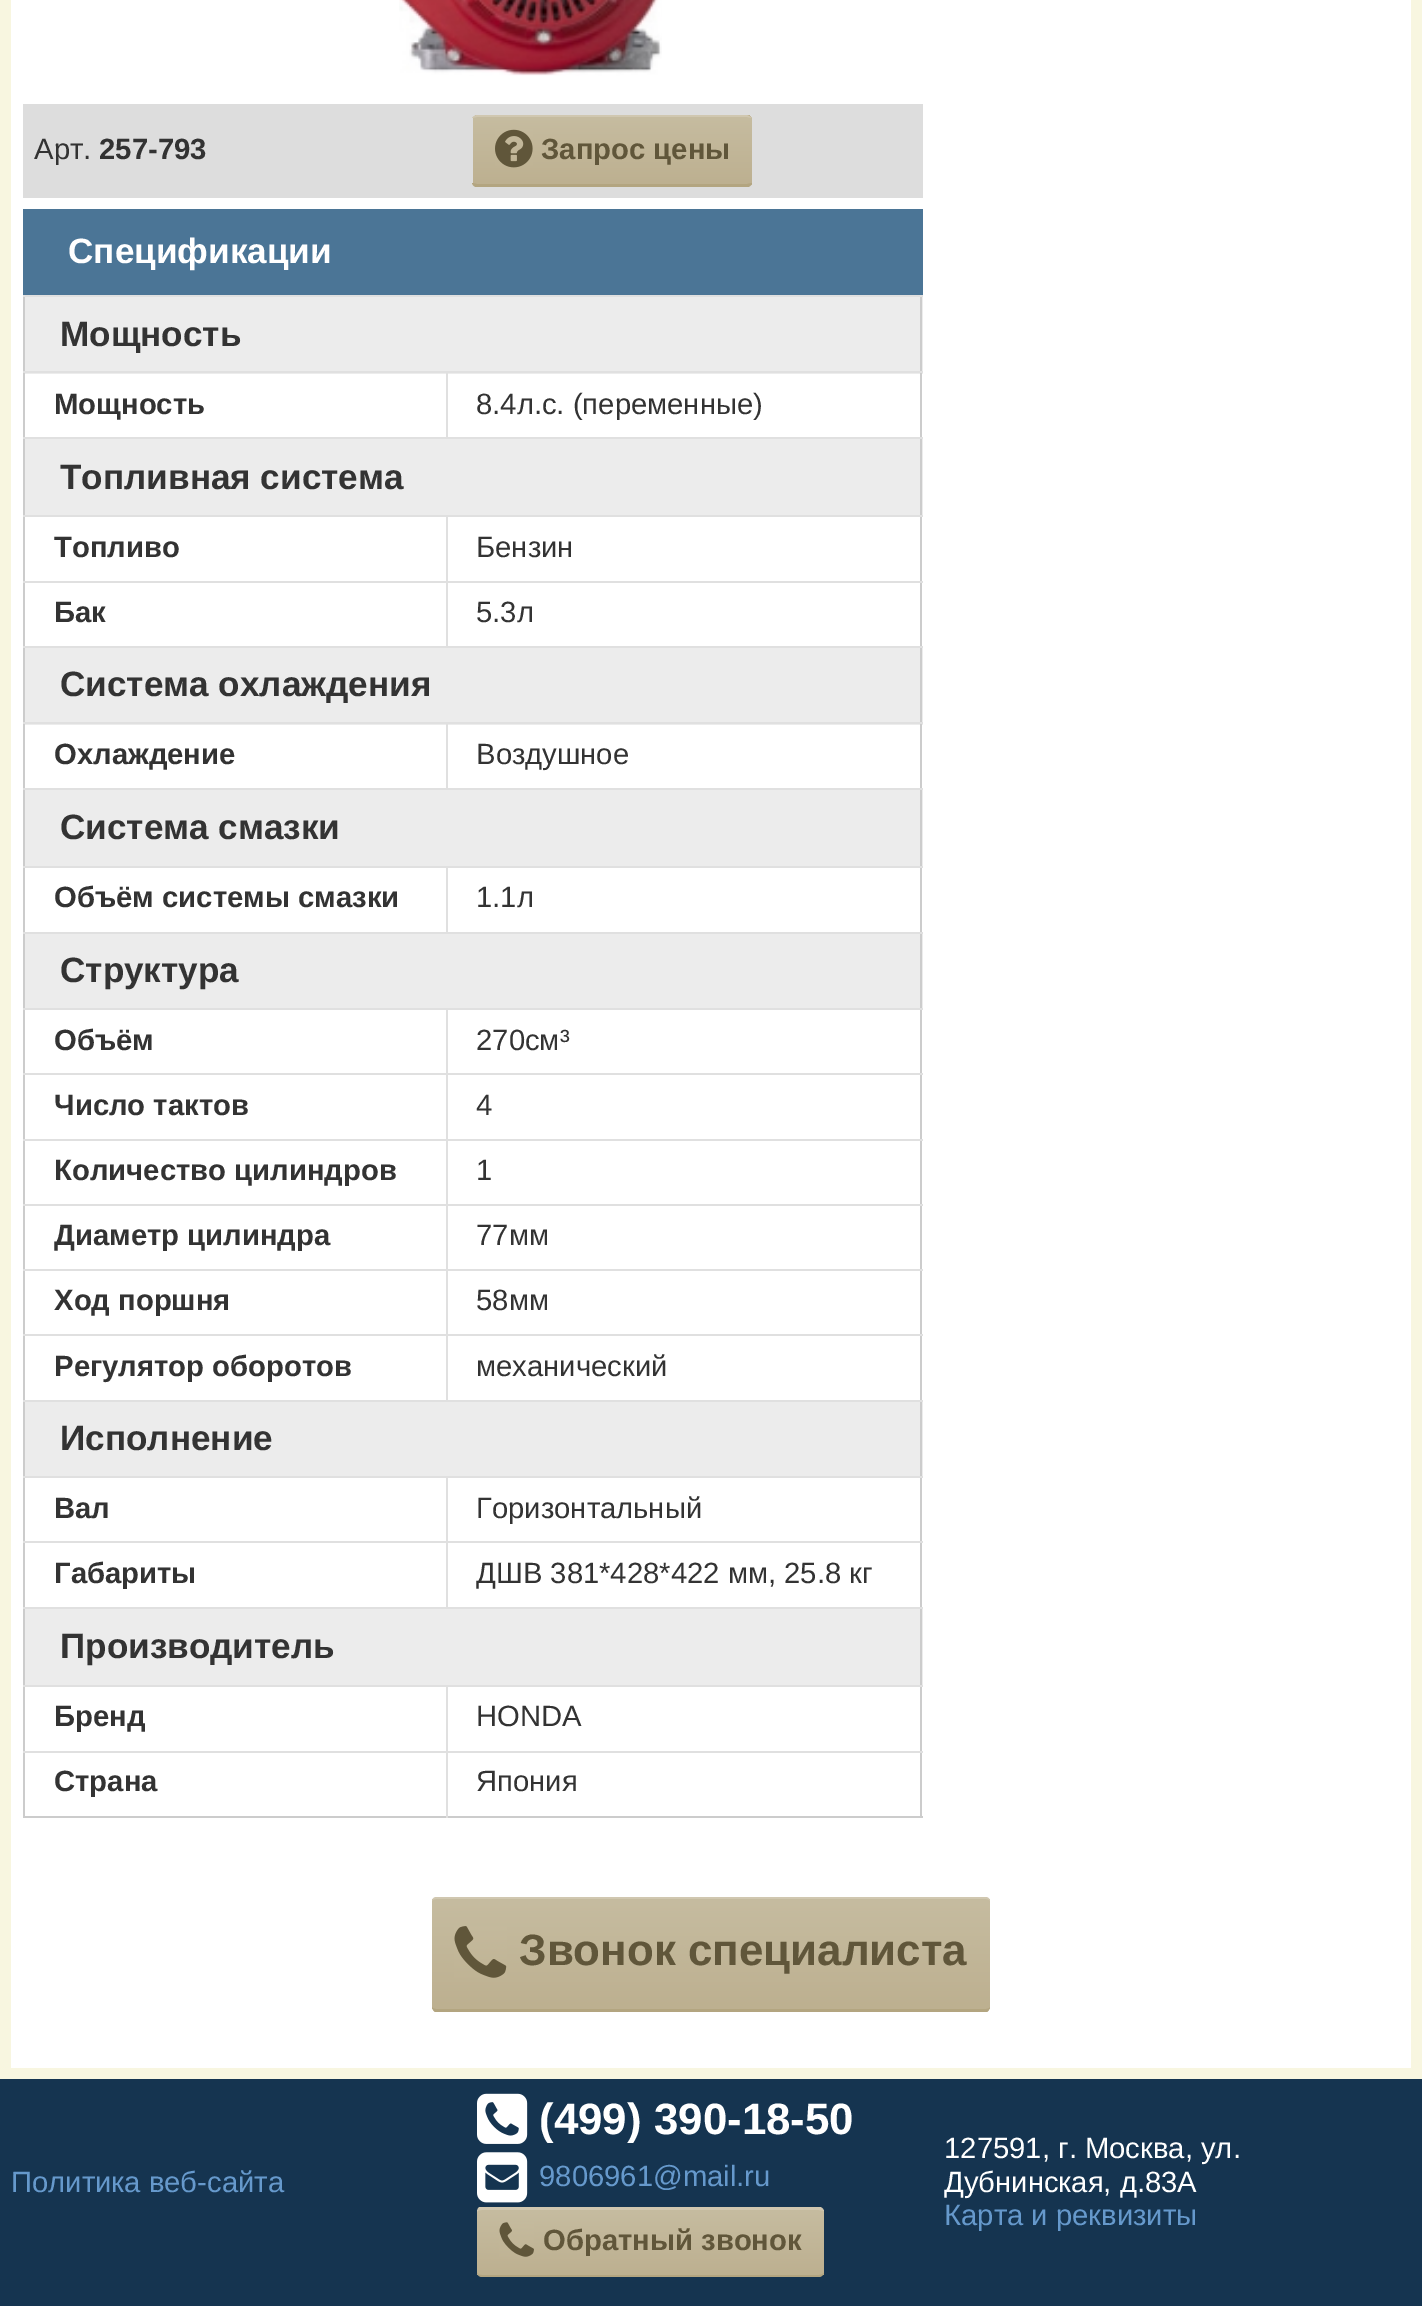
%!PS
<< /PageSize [1422 2306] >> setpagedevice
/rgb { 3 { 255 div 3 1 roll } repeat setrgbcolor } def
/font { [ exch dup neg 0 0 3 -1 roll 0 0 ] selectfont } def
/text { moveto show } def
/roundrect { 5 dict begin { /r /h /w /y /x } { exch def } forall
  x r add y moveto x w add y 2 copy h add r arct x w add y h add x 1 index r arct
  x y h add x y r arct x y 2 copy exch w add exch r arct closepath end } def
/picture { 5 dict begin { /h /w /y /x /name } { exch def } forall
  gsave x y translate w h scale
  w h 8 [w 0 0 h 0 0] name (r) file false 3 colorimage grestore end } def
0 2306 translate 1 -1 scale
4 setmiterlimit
21 52 80 rgb
0 0 1422 2306 rectfill
248 246 224 rgb
0 0 1422 2079 rectfill
255 255 255 rgb
11 0 1400 2068 rectfill
(img_01.rgb) 399 0 263 76 picture
221 221 221 rgb
23 104 900 94 rectfill
gsave
473 115 279 72 5 roundrect clip newpath
gsave 473 115 moveto 279 0 rlineto 0 2 rlineto -279 0 rlineto closepath clip newpath
<< /ShadingType 2 /ColorSpace /DeviceRGB /Coords [612 49 612 117] /Extend [true true] /Function << /FunctionType 2 /Domain [0 1] /C0 [0.776 0.737 0.627] /C1 [0.741 0.69 0.565] /N 1 >> >> shfill grestore
gsave 473 117 moveto 279 0 rlineto 0 68 rlineto -279 0 rlineto closepath clip newpath
<< /ShadingType 2 /ColorSpace /DeviceRGB /Coords [612 117 612 185] /Extend [true true] /Function << /FunctionType 2 /Domain [0 1] /C0 [0.776 0.737 0.627] /C1 [0.741 0.69 0.565] /N 1 >> >> shfill grestore
grestore
208 199 176 rgb
477 115 moveto 270 0 rlineto 4 2 rlineto 1 1 rlineto -1 0 -4 -1 -5 -1 rcurveto -270 0 rlineto -1 0 -4 1 -5 1 rcurveto 1 -2 4 -3 5 -3 rcurveto closepath fill
179 165 128 rgb
752 183 moveto 0 1 -2 4 -4 4 rcurveto -272 0 rlineto -2 0 -4 -3 -4 -4 rcurveto 1 0 4 1 5 1 rcurveto 270 0 rlineto 1 0 4 -1 5 -1 rcurveto closepath fill
(img_02.rgb) 495 129 38 39 picture
75 117 150 rgb
23 209 900 86 rectfill
236 236 236 rgb
25 297 898 77 rectfill
25 439 898 76 rectfill
25 648 898 77 rectfill
25 790 898 76 rectfill
25 934 898 74 rectfill
25 1402 898 74 rectfill
25 1609 898 76 rectfill
204 204 204 rgb
920 295 2 1523 rectfill
23 1816 900 2 rectfill
23 295 2 1523 rectfill
224 224 224 rgb
23 295 900 2 rectfill
446 371 477 2 rectfill
23 437 900 2 rectfill
446 371 2 68 rectfill
23 371 425 2 rectfill
446 515 477 2 rectfill
446 581 477 2 rectfill
23 646 900 2 rectfill
446 581 2 67 rectfill
23 581 425 2 rectfill
446 515 2 68 rectfill
23 515 425 2 rectfill
446 722 477 2 rectfill
23 788 900 2 rectfill
446 722 2 68 rectfill
23 722 425 2 rectfill
446 866 477 2 rectfill
23 932 900 2 rectfill
446 866 2 68 rectfill
23 866 425 2 rectfill
446 1008 477 2 rectfill
446 1073 477 2 rectfill
446 1139 477 2 rectfill
446 1204 477 2 rectfill
446 1269 477 2 rectfill
446 1334 477 2 rectfill
23 1400 900 2 rectfill
446 1334 2 68 rectfill
23 1334 425 2 rectfill
446 1269 2 68 rectfill
23 1269 425 2 rectfill
446 1204 2 67 rectfill
23 1204 425 2 rectfill
446 1139 2 67 rectfill
23 1139 425 2 rectfill
446 1073 2 68 rectfill
23 1073 425 2 rectfill
446 1008 2 68 rectfill
23 1008 425 2 rectfill
446 1476 477 2 rectfill
446 1541 477 2 rectfill
23 1607 900 2 rectfill
446 1541 2 68 rectfill
23 1541 425 2 rectfill
446 1476 2 68 rectfill
23 1476 425 2 rectfill
446 1685 477 2 rectfill
446 1751 477 2 rectfill
446 1751 2 67 rectfill
23 1751 425 2 rectfill
446 1685 2 68 rectfill
23 1685 425 2 rectfill
gsave
432 1897 558 115 5 roundrect clip newpath
gsave 432 1899 moveto 558 0 rlineto 0 110 rlineto -558 0 rlineto closepath clip newpath
<< /ShadingType 2 /ColorSpace /DeviceRGB /Coords [711 1899 711 2009] /Extend [true true] /Function << /FunctionType 2 /Domain [0 1] /C0 [0.776 0.737 0.627] /C1 [0.741 0.69 0.565] /N 1 >> >> shfill grestore
grestore
208 199 176 rgb
436 1897 moveto -2 0 -4 2 -4 4 rcurveto 0 -1 2 -2 4 -2 rcurveto 550 0 rlineto 2 0 4 1 4 2 rcurveto 0 -2 -2 -4 -4 -4 rcurveto closepath fill
179 165 128 rgb
987 2012 moveto 2 -1 3 -4 3 -5 rcurveto 0 1 -2 2 -4 2 rcurveto -550 0 rlineto -2 0 -4 -1 -4 -2 rcurveto 0 1 1 4 3 5 rcurveto closepath fill
(img_03.rgb) 454 1926 53 52 picture
(img_04.rgb) 477 2093 51 51 picture
(img_05.rgb) 477 2152 51 51 picture
gsave
477 2207 347 70 5 roundrect clip newpath
gsave 477 2210 moveto 347 0 rlineto 0 65 rlineto -347 0 rlineto closepath clip newpath
<< /ShadingType 2 /ColorSpace /DeviceRGB /Coords [650 2210 650 2275] /Extend [true true] /Function << /FunctionType 2 /Domain [0 1] /C0 [0.776 0.737 0.627] /C1 [0.741 0.69 0.565] /N 1 >> >> shfill grestore
grestore
208 199 176 rgb
482 2210 moveto -3 0 -5 1 -5 2 rcurveto 0 -2 1 -5 3 -5 rcurveto 340 0 rlineto 2 0 4 3 4 4 rcurveto -5 -1 rlineto closepath fill
179 165 128 rgb
482 2277 moveto 337 0 rlineto 2 0 5 -2 5 -4 rcurveto -1 1 -4 2 -5 2 rcurveto -337 0 rlineto -3 0 -5 -1 -5 -3 rcurveto 0 3 2 5 5 5 rcurveto closepath fill
(img_06.rgb) 499 2222 35 35 picture
/LiberationSans-Regular 29.25 font
51 51 51 rgb
(Арт.) 34 159 text
/LiberationSans-Bold 29.25 font
(257-793) 99 159 text
96 86 58 rgb
(Запрос цены) 541 159 text
/LiberationSans-Bold 35.1 font
255 255 255 rgb
(Спецификации) 68 263 text
51 51 51 rgb
(Мощность) 60 346 text
/LiberationSans-Bold 29.25 font
(Мощность) 54 414 text
/LiberationSans-Regular 29.25 font
(8.4л.с. \(переменные\)) 476 414 text
/LiberationSans-Bold 35.1 font
(Топливная система) 60 489 text
/LiberationSans-Bold 29.25 font
(Топливо) 54 557 text
/LiberationSans-Regular 29.25 font
(Бензин) 476 557 text
/LiberationSans-Bold 29.25 font
(Бак) 54 622 text
/LiberationSans-Regular 29.25 font
(5.3л) 476 622 text
/LiberationSans-Bold 35.1 font
(Система охлаждения) 60 696 text
/LiberationSans-Bold 29.25 font
(Охлаждение) 54 764 text
/LiberationSans-Regular 29.25 font
(Воздушное) 476 764 text
/LiberationSans-Bold 35.1 font
(Система смазки) 60 839 text
/LiberationSans-Bold 29.25 font
(Объём системы смазки) 54 907 text
/LiberationSans-Regular 29.25 font
(1.1л) 476 907 text
/LiberationSans-Bold 35.1 font
(Структура) 60 982 text
/LiberationSans-Bold 29.25 font
(Объём) 54 1050 text
/LiberationSans-Regular 29.25 font
(270см³) 476 1050 text
/LiberationSans-Bold 29.25 font
(Число тактов) 54 1115 text
/LiberationSans-Regular 29.25 font
(4) 476 1115 text
/LiberationSans-Bold 29.25 font
(Количество цилиндров) 54 1180 text
/LiberationSans-Regular 29.25 font
(1) 476 1180 text
/LiberationSans-Bold 29.25 font
(Диаметр цилиндра) 54 1245 text
/LiberationSans-Regular 29.25 font
(77мм) 476 1245 text
/LiberationSans-Bold 29.25 font
(Ход поршня) 54 1310 text
/LiberationSans-Regular 29.25 font
(58мм) 476 1310 text
/LiberationSans-Bold 29.25 font
(Регулятор оборотов) 54 1376 text
/LiberationSans-Regular 29.25 font
(механический) 476 1376 text
/LiberationSans-Bold 35.1 font
(Исполнение) 60 1450 text
/LiberationSans-Bold 29.25 font
(Вал) 54 1518 text
/LiberationSans-Regular 29.25 font
(Горизонтальный) 476 1518 text
/LiberationSans-Bold 29.25 font
(Габариты) 54 1583 text
/LiberationSans-Regular 29.25 font
(ДШВ 381*428*422 мм, 25.8 кг) 476 1583 text
/LiberationSans-Bold 35.1 font
(Производитель) 60 1658 text
/LiberationSans-Bold 29.25 font
(Бренд) 54 1726 text
/LiberationSans-Regular 29.25 font
(HONDA) 476 1726 text
/LiberationSans-Bold 29.25 font
(Страна) 54 1791 text
/LiberationSans-Regular 29.25 font
(Япония) 476 1791 text
/LiberationSans-Bold 43.9 font
96 86 58 rgb
(Звонок специалиста) 519 1965 text
/LiberationSans-Regular 29.25 font
102 153 204 rgb
(Политика веб-сайта) 11 2192 text
/LiberationSans-Bold 43.9 font
255 255 255 rgb
(\(499\) 390-18-50) 539 2134 text
/LiberationSans-Regular 29.25 font
102 153 204 rgb
(9806961@mail.ru) 539 2186 text
/LiberationSans-Bold 29.25 font
96 86 58 rgb
(Обратный звонок) 543 2250 text
/LiberationSans-Regular 29.25 font
255 255 255 rgb
(127591, г. Москва, ул.) 944 2158 text
(Дубнинская, д.83А) 944 2192 text
102 153 204 rgb
(Карта и реквизиты) 944 2225 text
showpage
